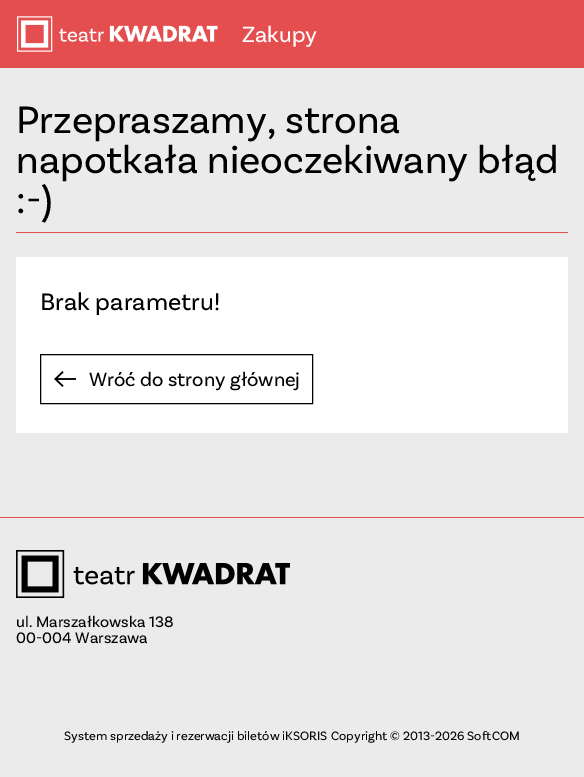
%!PS
<< /PageSize [584 777] >> setpagedevice
/rgb { 3 { 255 div 3 1 roll } repeat setrgbcolor } def
/font { [ exch dup neg 0 0 3 -1 roll 0 0 ] selectfont } def
/text { moveto show } def
/picture { 5 dict begin { /h /w /y /x /name } { exch def } forall
  gsave x y translate w h scale
  w h 8 [w 0 0 h 0 0] name (r) file false 3 colorimage grestore end } def
0 777 translate 1 -1 scale
4 setmiterlimit
235 235 235 rgb
0 0 584 777 rectfill
229 78 78 rgb
0 0 584 68 rectfill
(img_01.rgb) 17 16 201 36 picture
16 232 552 1 rectfill
255 255 255 rgb
16 257 552 176 rectfill
0 0 0 rgb
40.5 354.5 272 49 rectstroke
(img_02.rgb) 54 371 22 16 picture
229 78 78 rgb
0 517 584 1 rectfill
(img_03.rgb) 16 550 274 48 picture
/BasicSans-Regular 23 font
255 255 255 rgb
(Zakupy) 242 42 text
/BasicSans-Regular 40 font
0 0 0 rgb
(Przepraszamy, strona) 16 133 text
(napotkała nieoczekiwany błąd) 16 173 text
(:-\)) 16 213 text
/BasicSans-Regular 25 font
(Brak parametru!) 40 310 text
/BasicSans-Regular 20 font
(Wróć do strony głównej) 89 386 text
/BasicSans-Regular 16 font
(ul. Marszałkowska 138) 16 627 text
(00-004 Warszawa) 16 643 text
/BasicSans-Regular 12.8 font
(System sprzedaży i rezerwacji biletów iKSORIS) 64 740 text
(Copyright © 2013-2026 SoftCOM) 331 740 text
showpage
